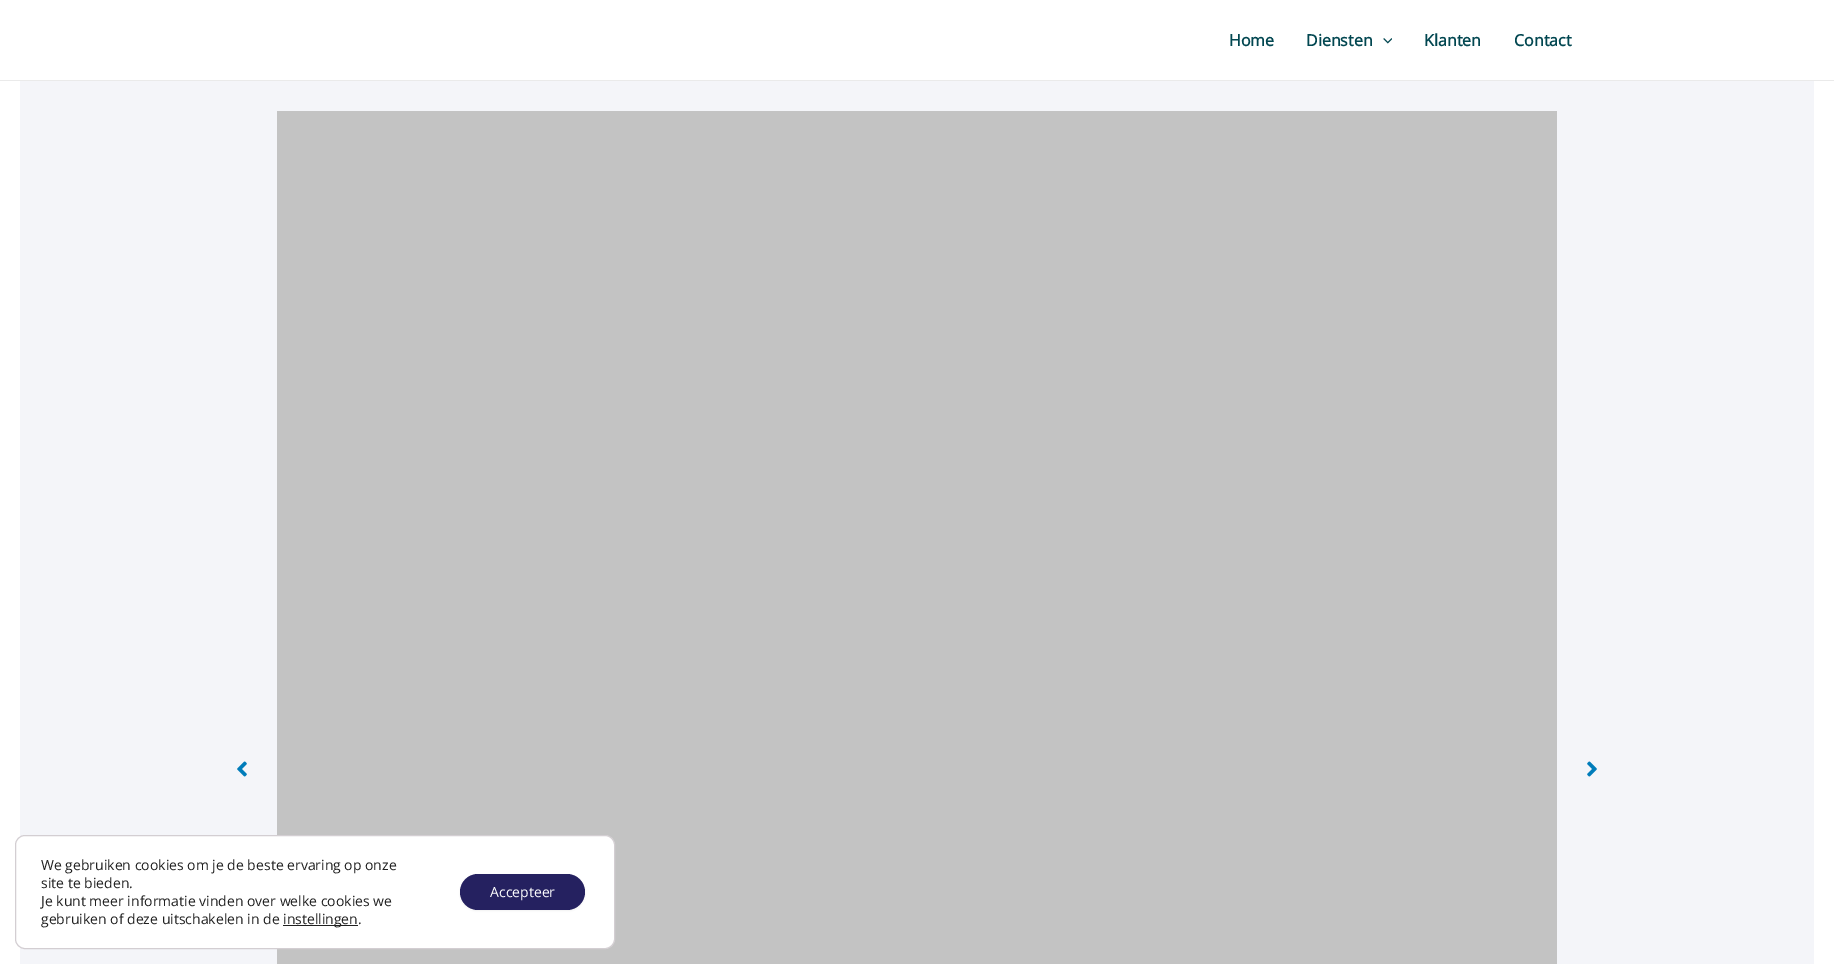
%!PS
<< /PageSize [1834 964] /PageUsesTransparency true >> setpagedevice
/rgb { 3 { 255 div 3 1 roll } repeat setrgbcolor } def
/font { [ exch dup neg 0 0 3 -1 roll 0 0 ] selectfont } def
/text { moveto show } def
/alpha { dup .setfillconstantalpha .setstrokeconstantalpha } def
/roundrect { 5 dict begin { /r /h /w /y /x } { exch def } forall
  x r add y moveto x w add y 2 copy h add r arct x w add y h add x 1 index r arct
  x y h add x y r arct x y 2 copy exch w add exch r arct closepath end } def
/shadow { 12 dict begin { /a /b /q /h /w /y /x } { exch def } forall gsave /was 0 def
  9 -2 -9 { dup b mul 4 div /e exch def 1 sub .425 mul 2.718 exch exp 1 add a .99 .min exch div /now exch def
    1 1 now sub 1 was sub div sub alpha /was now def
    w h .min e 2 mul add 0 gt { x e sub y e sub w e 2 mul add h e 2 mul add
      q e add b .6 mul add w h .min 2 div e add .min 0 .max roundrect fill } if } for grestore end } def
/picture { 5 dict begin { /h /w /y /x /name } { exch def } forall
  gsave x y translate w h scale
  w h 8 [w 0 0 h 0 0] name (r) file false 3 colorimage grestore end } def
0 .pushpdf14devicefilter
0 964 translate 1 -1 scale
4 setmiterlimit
255 255 255 rgb
0 0 1834 964 rectfill
234 234 234 rgb
0 80 1834 1 rectfill
(img_01.rgb) 1383 38 9 6 picture
244 245 249 rgb
20 81 1794 883 rectfill
(img_02.rgb) 237 761 10 16 picture
195 195 195 rgb
277 111 1280 853 rectfill
(img_03.rgb) 1587 761 10 16 picture
255 255 255 rgb
15.5 835.5 599 113 9.5 roundrect gsave fill grestore
211 206 210 rgb
stroke
32 32 32 rgb
283 925 75 1 rectfill
0 0 0 rgb
460 875 125 36 18 1 0.05 shadow
37 33 96 rgb
460 874 125 36 18 roundrect fill
/OpenSans-Bold 16 font
2 71 81 rgb
(Home) 1229 46 text
(Diensten) 1306 46 text
(Klanten) 1424 46 text
(Contact) 1514 46 text
/OpenSans-Regular 14 font
32 32 32 rgb
(We gebruiken cookies om je de beste ervaring op onze) 41 870 text
(site te bieden.) 41 888 text
(Je kunt meer informatie vinden over welke cookies we) 41 906 text
(gebruiken of deze uitschakelen in de) 41 924 text
(instellingen.) 283 924 text
255 255 255 rgb
(Accepteer) 490 897 text
.poppdf14devicefilter showpage
